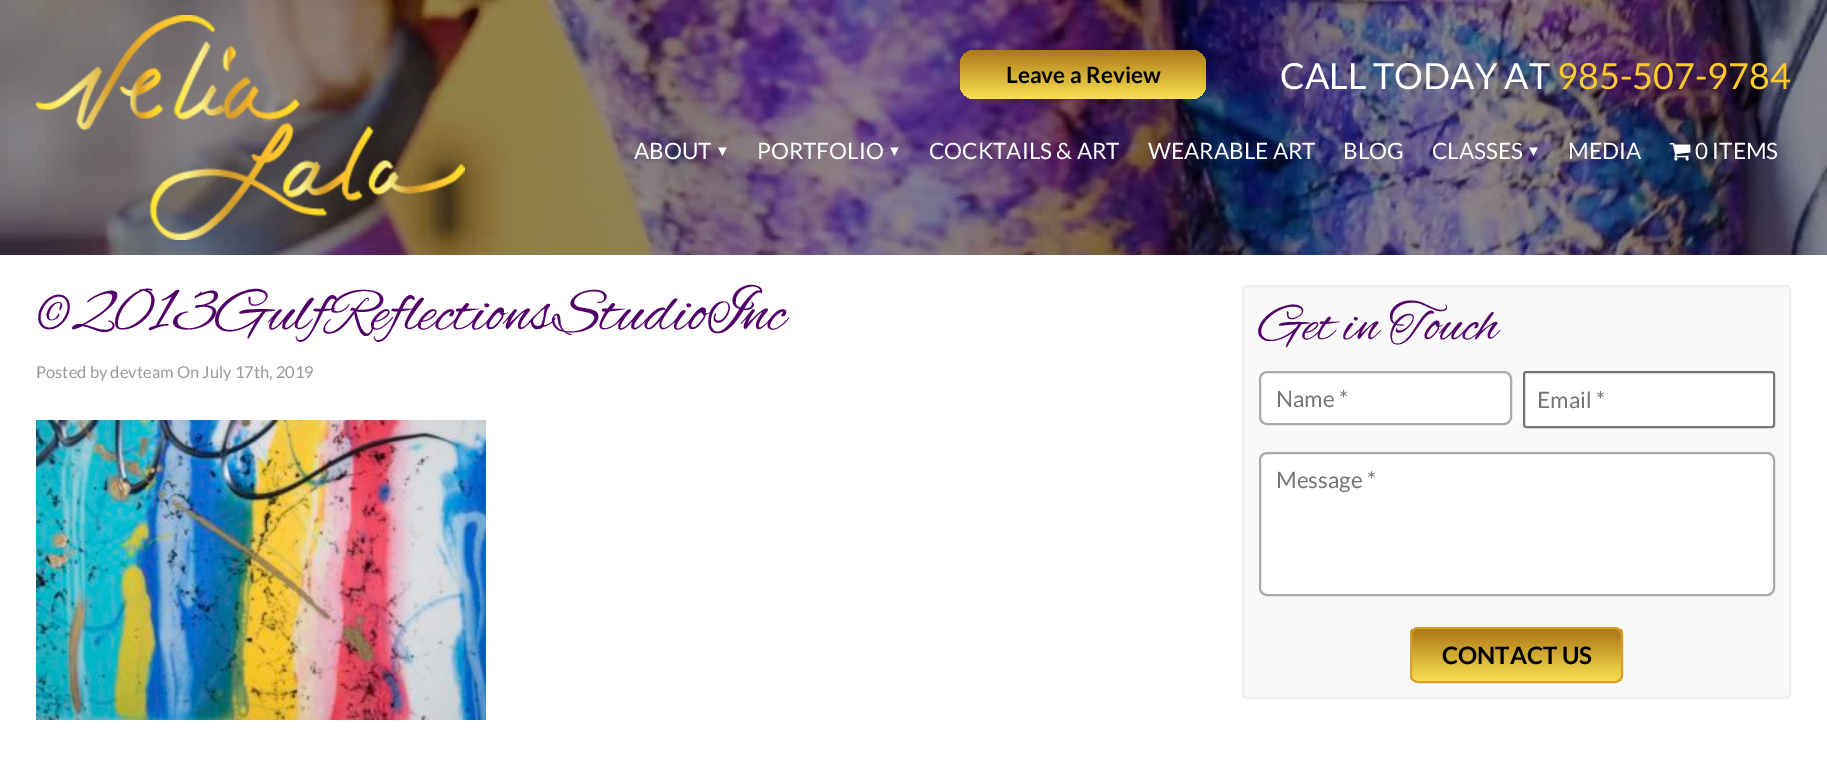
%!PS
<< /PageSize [1827 765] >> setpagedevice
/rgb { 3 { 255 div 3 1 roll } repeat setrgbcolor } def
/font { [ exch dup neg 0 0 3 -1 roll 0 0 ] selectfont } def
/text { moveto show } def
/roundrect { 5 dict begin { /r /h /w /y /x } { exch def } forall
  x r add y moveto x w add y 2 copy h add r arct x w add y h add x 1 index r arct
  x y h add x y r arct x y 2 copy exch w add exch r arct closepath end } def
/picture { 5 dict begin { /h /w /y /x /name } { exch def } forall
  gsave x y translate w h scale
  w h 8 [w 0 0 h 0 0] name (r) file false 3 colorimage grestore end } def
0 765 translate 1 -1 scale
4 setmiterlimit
255 255 255 rgb
0 0 1827 765 rectfill
(img_01.rgb) 0 0 1827 255 picture
(img_02.rgb) 36 15 429 225 picture
gsave 960 50 246 49 15 roundrect clip newpath
<< /ShadingType 2 /ColorSpace /DeviceRGB /Coords [1083 49 1083 99] /Extend [true true] /Function << /FunctionType 2 /Domain [0 1] /C0 [0.671 0.463 0.086] /C1 [0.976 0.878 0.322] /N 1 >> >> shfill grestore
(img_03.rgb) 1669 142 22 19 picture
(img_04.rgb) 36 420 450 300 picture
249 249 249 rgb
1243 286 547 412 4 roundrect gsave fill grestore
238 238 238 rgb
2 setlinewidth
stroke
255 255 255 rgb
1260 372 251 52 7 roundrect gsave fill grestore
170 170 170 rgb
stroke
255 255 255 rgb
1524 372 250 55 2 roundrect gsave fill grestore
118 118 118 rgb
stroke
255 255 255 rgb
1260 453 514 142 7 roundrect gsave fill grestore
170 170 170 rgb
stroke
gsave
1410 627 213 56 8 roundrect clip newpath
gsave 1410 629 moveto 213 0 rlineto 0 52 rlineto -213 0 rlineto closepath clip newpath
<< /ShadingType 2 /ColorSpace /DeviceRGB /Coords [1517 629 1517 681] /Extend [true true] /Function << /FunctionType 2 /Domain [0 1] /C0 [0.671 0.463 0.086] /C1 [0.976 0.878 0.322] /N 1 >> >> shfill grestore
grestore
216 159 41 rgb
1411 628 211 54 7 roundrect stroke
/Lato-Bold 22.5 font
0 0 0 rgb
(Leave a Review) 1006 83 text
/Lato-Regular 36 font
255 255 255 rgb
(CALL TODAY AT) 1280 89 text
253 203 45 rgb
(985-507-9784) 1557 89 text
/Lato-Regular 22.5 font
255 255 255 rgb
(ABOUT) 634 159 text
/LiberationSans-Regular 15 font
(▼) 715 156 text
/Lato-Regular 22.5 font
(PORTFOLIO) 757 159 text
/LiberationSans-Regular 15 font
(▼) 887 156 text
/Lato-Regular 22.5 font
(COCKTAILS & ART) 929 159 text
(WEARABLE ART) 1148 159 text
(BLOG) 1343 159 text
(CLASSES) 1432 159 text
/LiberationSans-Regular 15 font
(▼) 1526 156 text
/Lato-Regular 22.5 font
(MEDIA) 1568 159 text
(0 ITEMS) 1695 159 text
/AlexBrush-Regular 63 font
82 0 105 rgb
(©2013GulfReflectionsStudioInc) 36 329 text
/Lato-Regular 16.5 font
153 153 153 rgb
(Posted by devteam On July 17th, 2019) 36 378 text
/AlexBrush-Regular 54 font
82 0 105 rgb
(Get in Touch) 1259 339 text
/Lato-Regular 22.5 font
117 117 117 rgb
(Name *) 1276 407 text
(Email *) 1537 408 text
(Message *) 1276 488 text
/Lato-Bold 24 font
0 0 0 rgb
(CONTACT US) 1442 664 text
showpage
